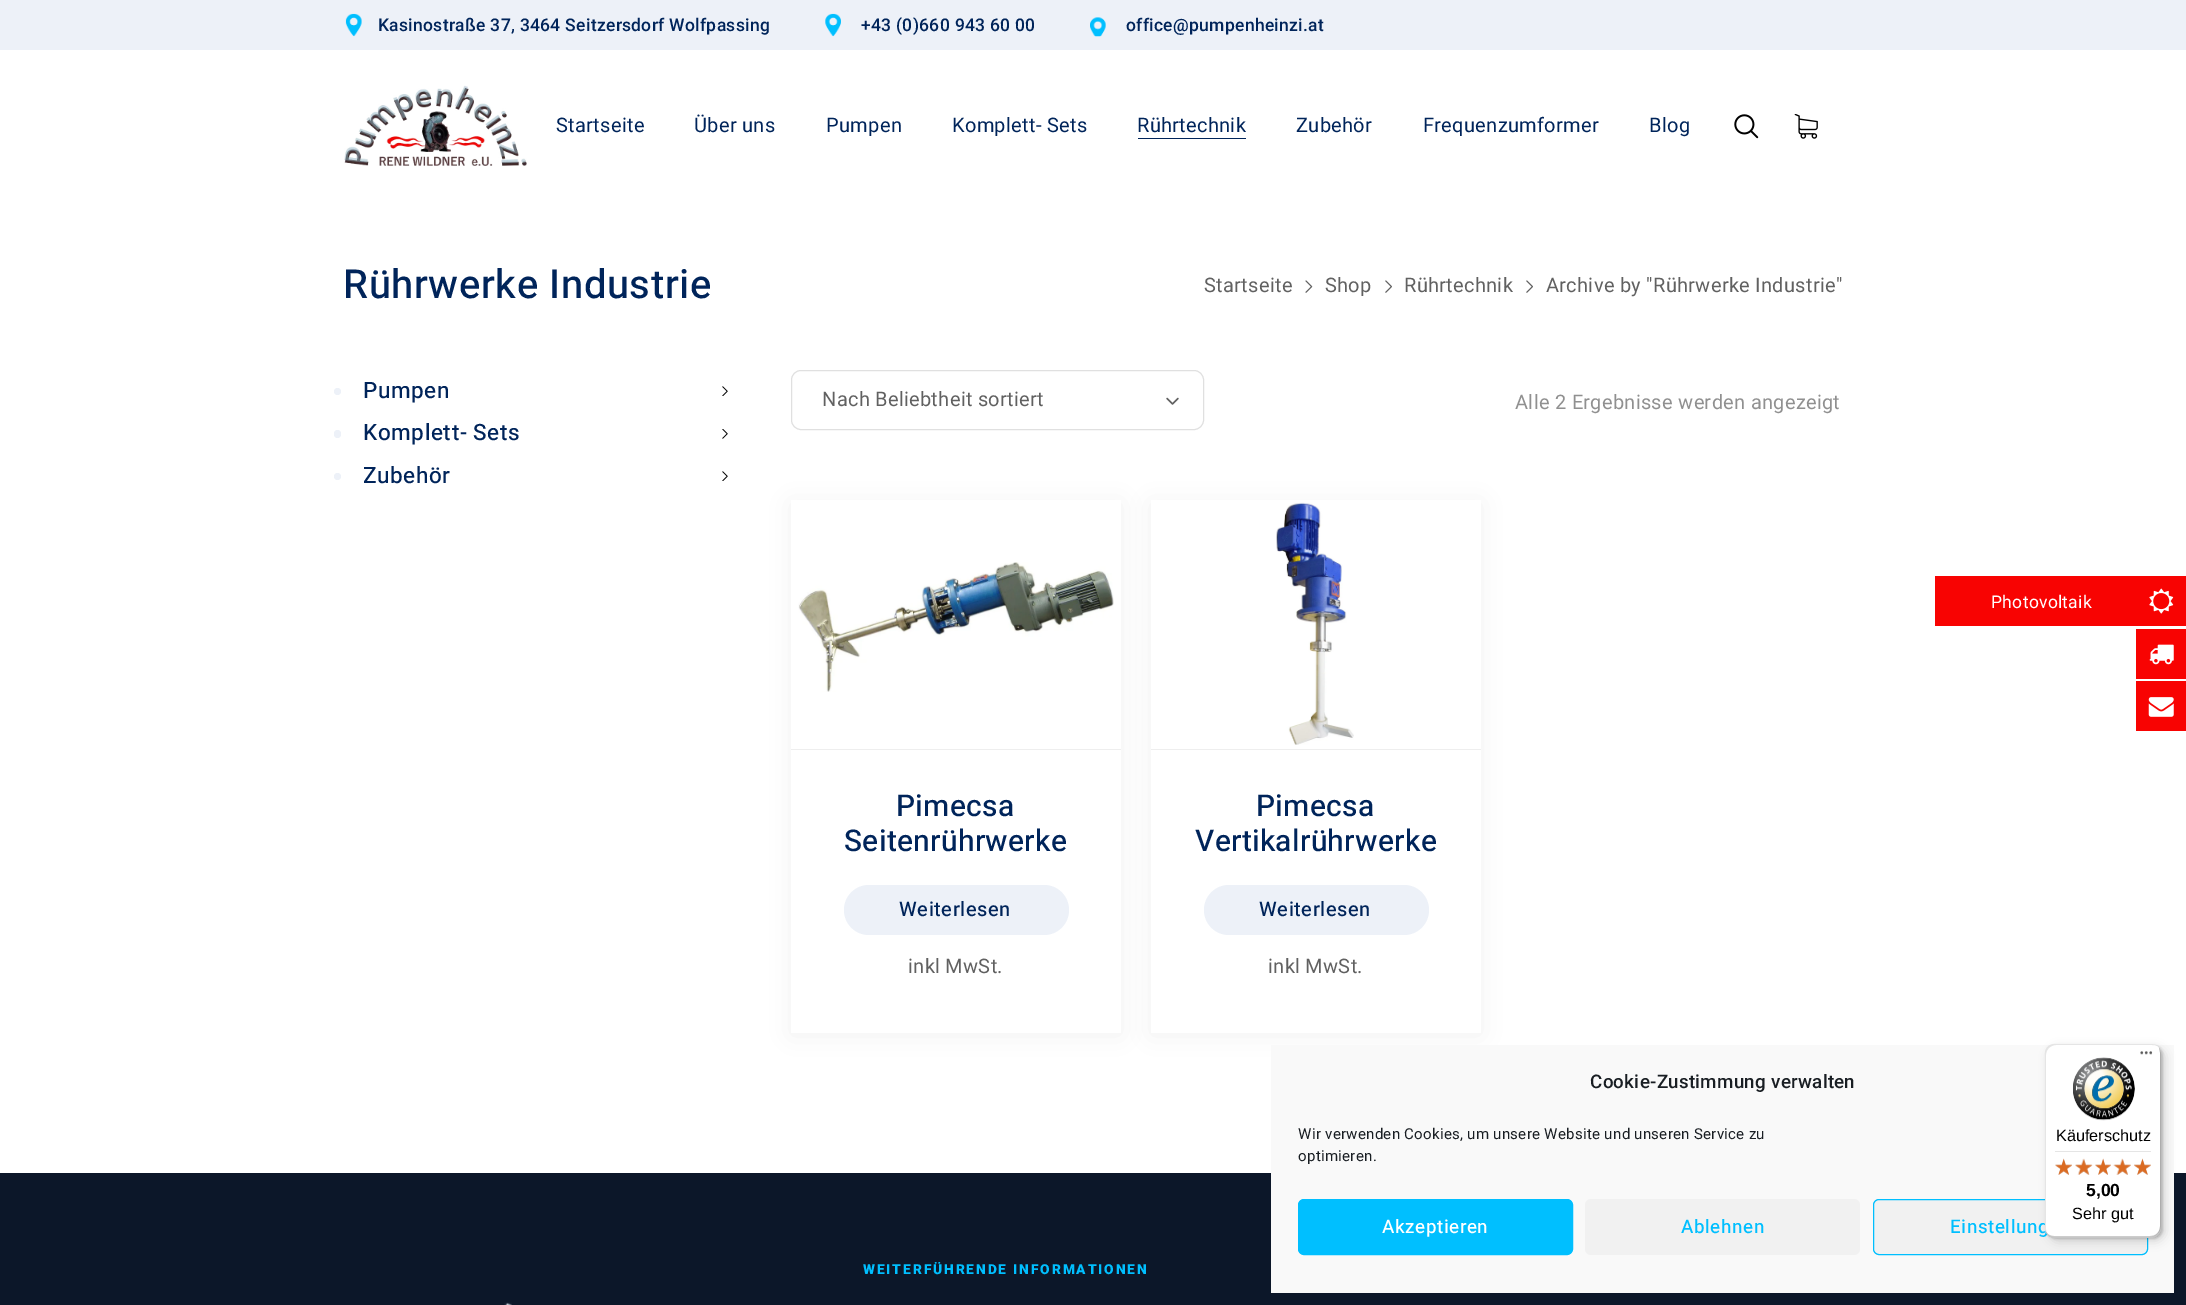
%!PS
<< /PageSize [2186 1305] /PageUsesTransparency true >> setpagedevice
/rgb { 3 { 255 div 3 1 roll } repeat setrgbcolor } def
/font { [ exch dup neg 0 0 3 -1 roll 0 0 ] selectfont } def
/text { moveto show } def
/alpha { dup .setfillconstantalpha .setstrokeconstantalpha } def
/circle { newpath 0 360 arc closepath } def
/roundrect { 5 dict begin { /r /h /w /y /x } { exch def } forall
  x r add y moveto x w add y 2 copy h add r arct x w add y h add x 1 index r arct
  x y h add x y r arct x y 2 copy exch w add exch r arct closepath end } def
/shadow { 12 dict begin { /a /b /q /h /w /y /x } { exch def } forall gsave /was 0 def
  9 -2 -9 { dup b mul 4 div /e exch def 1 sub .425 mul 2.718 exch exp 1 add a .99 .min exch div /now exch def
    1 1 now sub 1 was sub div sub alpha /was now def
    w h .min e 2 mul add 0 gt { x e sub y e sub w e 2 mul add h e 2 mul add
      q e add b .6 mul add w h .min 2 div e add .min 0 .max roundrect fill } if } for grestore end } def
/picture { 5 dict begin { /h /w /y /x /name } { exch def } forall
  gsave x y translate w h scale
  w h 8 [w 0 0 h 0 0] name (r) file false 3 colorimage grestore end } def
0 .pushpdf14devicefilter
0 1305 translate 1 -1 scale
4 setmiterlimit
255 255 255 rgb
0 0 2186 1305 rectfill
237 241 248 rgb
0 0 2186 50 rectfill
(img_01.rgb) 345 13 17 24 picture
(img_02.rgb) 825 13 16 24 picture
(img_03.rgb) 1090 17 16 20 picture
(img_04.rgb) 344 85 183 81 picture
0 36 90 rgb
1138 138 108 1 rectfill
(img_05.rgb) 1734 114 25 25 picture
(img_06.rgb) 1794 114 24 25 picture
(img_07.rgb) 1305 280 8 13 picture
(img_08.rgb) 1385 280 7 13 picture
(img_09.rgb) 1526 280 7 13 picture
237 241 248 rgb
337.5 391.5 3.5 circle fill
(img_10.rgb) 722 386 6 10 picture
334 430 7 8 3.5 roundrect fill
(img_11.rgb) 722 429 6 10 picture
337.5 476.5 3.5 circle fill
(img_10.rgb) 722 471 6 10 picture
(img_12.rgb) 1166 397 13 8 picture
224 224 224 rgb
791.5 370.5 412 59 9.5 roundrect stroke
0 0 0 rgb
791 503 330 532 0 12.5 0.05 shadow
255 255 255 rgb
791 500 330 533 rectfill
0 0 0 rgb
1151 503 330 532 0 12.5 0.05 shadow
(img_13.rgb) 798 562 316 130 picture
238 238 238 rgb
791 749 330 1 rectfill
237 241 248 rgb
844 885 225 50 25 roundrect fill
255 255 255 rgb
1151 500 330 533 rectfill
(img_14.rgb) 1276 502 78 243 picture
238 238 238 rgb
1151 749 330 1 rectfill
237 241 248 rgb
1204 885 225 50 25 roundrect fill
12 23 41 rgb
0 1173 2186 132 rectfill
(img_15.rgb) 504 1302 8 3 picture
248 3 2 rgb
1935 576 251 50 rectfill
(img_16.rgb) 2149 588 25 26 picture
2136 629 50 50 rectfill
(img_17.rgb) 2149 644 25 21 picture
2136 681 50 50 rectfill
(img_18.rgb) 2148 697 26 20 picture
249 249 249 rgb
1271 1045 903 248 rectfill
0 191 255 rgb
1298.5 1199.5 274 55 5.5 roundrect gsave fill grestore
stroke
241 241 241 rgb
1585 1199 275 56 6 roundrect fill
1873.5 1199.5 274 55 5.5 roundrect gsave fill grestore
0 191 255 rgb
stroke
0 0 0 rgb
2049 1048 116 193 10 5 0.15 shadow
2046 1045 117 194 10 1 0.15 shadow
/Roboto-Medium 17.5 font
0 36 90 rgb
378 31 moveto 0.3 0 (Kasinostraße 37, 3464 Seitzersdorf Wolfpassing) ashow
861 31 moveto 0.3 0 (+43 \(0\)660 943 60 00) ashow
1126 31 moveto 0.3 0 (office@pumpenheinzi.at) ashow
/Roboto-Regular 20 font
556 132 moveto 0.3 0 (Startseite) ashow
694 132 moveto 0.3 0 (Über uns) ashow
826 132 moveto 0.3 0 (Pumpen) ashow
952 132 moveto 0.3 0 (Komplett- Sets) ashow
1137 132 moveto 0.3 0 (Rührtechnik) ashow
1296 132 moveto 0.3 0 (Zubehör) ashow
1423 132 moveto 0.3 0 (Frequenzumformer) ashow
1649 132 moveto 0.3 0 (Blog) ashow
/Heebo-Medium 40 font
343 298 moveto 0.6 0 (Rührwerke Industrie) ashow
/Roboto-Regular 20 font
97 97 97 rgb
1204 292 moveto 0.3 0 (Startseite) ashow
1325 292 moveto 0.3 0 (Shop) ashow
1404 292 moveto 0.3 0 (Rührtechnik) ashow
1546 292 moveto 0.3 0 (Archive by "Rührwerke Industrie") ashow
/Heebo-Medium 22.5 font
0 36 90 rgb
363 398 moveto 0.6 0 (Pumpen) ashow
363 440 moveto 0.6 0 (Komplett- Sets) ashow
363 483 moveto 0.6 0 (Zubehör) ashow
/Roboto-Regular 20 font
97 97 97 rgb
822 406 moveto 0.3 0 (Nach Beliebtheit sortiert) ashow
144 144 144 rgb
1515 409 moveto 0.3 0 (Alle 2 Ergebnisse werden angezeigt) ashow
/Heebo-Medium 30 font
0 36 90 rgb
896 816 moveto 0.3 0 (Pimecsa) ashow
844 851 moveto 0.3 0 (Seitenrührwerke) ashow
/Heebo-Medium 20 font
899 916 moveto 0.6 0 (Weiterlesen) ashow
/Roboto-Regular 20 font
97 97 97 rgb
908 973 moveto 0.3 0 (inkl MwSt.) ashow
/Heebo-Medium 30 font
0 36 90 rgb
1256 816 moveto 0.3 0 (Pimecsa) ashow
1195 851 moveto 0.3 0 (Vertikalrührwerke) ashow
/Heebo-Medium 20 font
1259 916 moveto 0.6 0 (Weiterlesen) ashow
/Roboto-Regular 20 font
97 97 97 rgb
1268 973 moveto 0.3 0 (inkl MwSt.) ashow
/Roboto-Black 13.75 font
0 191 255 rgb
863 1274 moveto 1.9 0 (WEITERFÜHRENDE INFORMATIONEN) ashow
/Roboto-Regular 17.5 font
255 255 255 rgb
1991 608 moveto 0.3 0 (Photovoltaik) ashow
/Roboto-Medium 18.75 font
25 30 35 rgb
1590 1088 moveto 0.3 0 (Cookie-Zustimmung verwalten) ashow
/Roboto-Regular 15 font
1298 1139 moveto 0.3 0 (Wir verwenden Cookies, um unsere Website und unseren Service zu) ashow
1298 1161 moveto 0.3 0 (optimieren.) ashow
/Heebo-Medium 18.75 font
255 255 255 rgb
1382 1233 moveto 0.6 0 (Akzeptieren) ashow
0 191 255 rgb
1681 1233 moveto 0.6 0 (Ablehnen) ashow
1950 1233 moveto 0.6 0 (Einstellung) ashow
255 255 255 rgb
2045 1044 116 194 10 roundrect fill
0.1 alpha
0 0 0 rgb
2056 1045 moveto 96 0 rlineto 2 0 4 0 5 1 rcurveto -1 -1 -4 -2 -6 -2 rcurveto -96 0 rlineto -6 0 -10 4 -10 10 rcurveto 0 174 rlineto 0 4 2 7 5 9 rcurveto -2 -2 -4 -5 -4 -8 rcurveto 0 -174 rlineto 0 -6 5 -10 10 -10 rcurveto closepath fill
0.2 alpha
2046 1232 moveto 2 4 5 6 9 6 rcurveto 96 0 rlineto 6 0 10 -4 10 -10 rcurveto 0 -174 rlineto 0 -2 -1 -4 -2 -6 rcurveto 1 4 rlineto 0 174 rlineto 0 6 -4 10 -10 10 rcurveto -96 0 rlineto -3 0 -6 -1 -8 -4 rcurveto closepath fill
50 50 50 rgb
2046 1233 moveto 2 3 5 5 9 5 rcurveto 96 0 rlineto 6 0 10 -4 10 -10 rcurveto 0 -174 rlineto 0 -2 -1 -5 -2 -6 rcurveto 1 1 1 3 1 5 rcurveto 0 174 rlineto 0 5 -4 10 -10 10 rcurveto -96 0 rlineto -3 0 -6 -2 -8 -4 rcurveto closepath fill
1 alpha
(img_19.rgb) 2140 1051 13 4 picture
0.3 alpha
255 255 255 rgb
2046 1233 moveto 2 3 5 5 9 5 rcurveto 96 0 rlineto 6 0 10 -4 10 -10 rcurveto 0 -1 rlineto 0 5 -5 10 -10 10 rcurveto -97 0 rlineto -3 0 -6 -2 -8 -4 rcurveto closepath fill
1 alpha
(img_20.rgb) 2073 1057 62 64 picture
/LiberationSans-Regular 16.25 font
0 0 0 rgb
(Käuferschutz) 2056 1141 text
229 229 229 rgb
2055 1151 96 1 rectfill
(img_26.rgb) 2055 1159 17 16 picture
(img_21.rgb) 2055 1158 17 17 picture
(img_27.rgb) 2075 1159 17 16 picture
(img_22.rgb) 2075 1158 18 17 picture
(img_28.rgb) 2095 1159 16 16 picture
(img_23.rgb) 2095 1158 16 17 picture
(img_29.rgb) 2113 1159 18 16 picture
(img_24.rgb) 2113 1158 18 17 picture
(img_30.rgb) 2134 1159 17 16 picture
(img_25.rgb) 2134 1158 17 17 picture
/LiberationSans-Bold 17.5 font
0 0 0 rgb
(5,00) 2086 1196 text
/LiberationSans-Regular 16.25 font
(Sehr gut) 2072 1219 text
.poppdf14devicefilter showpage
